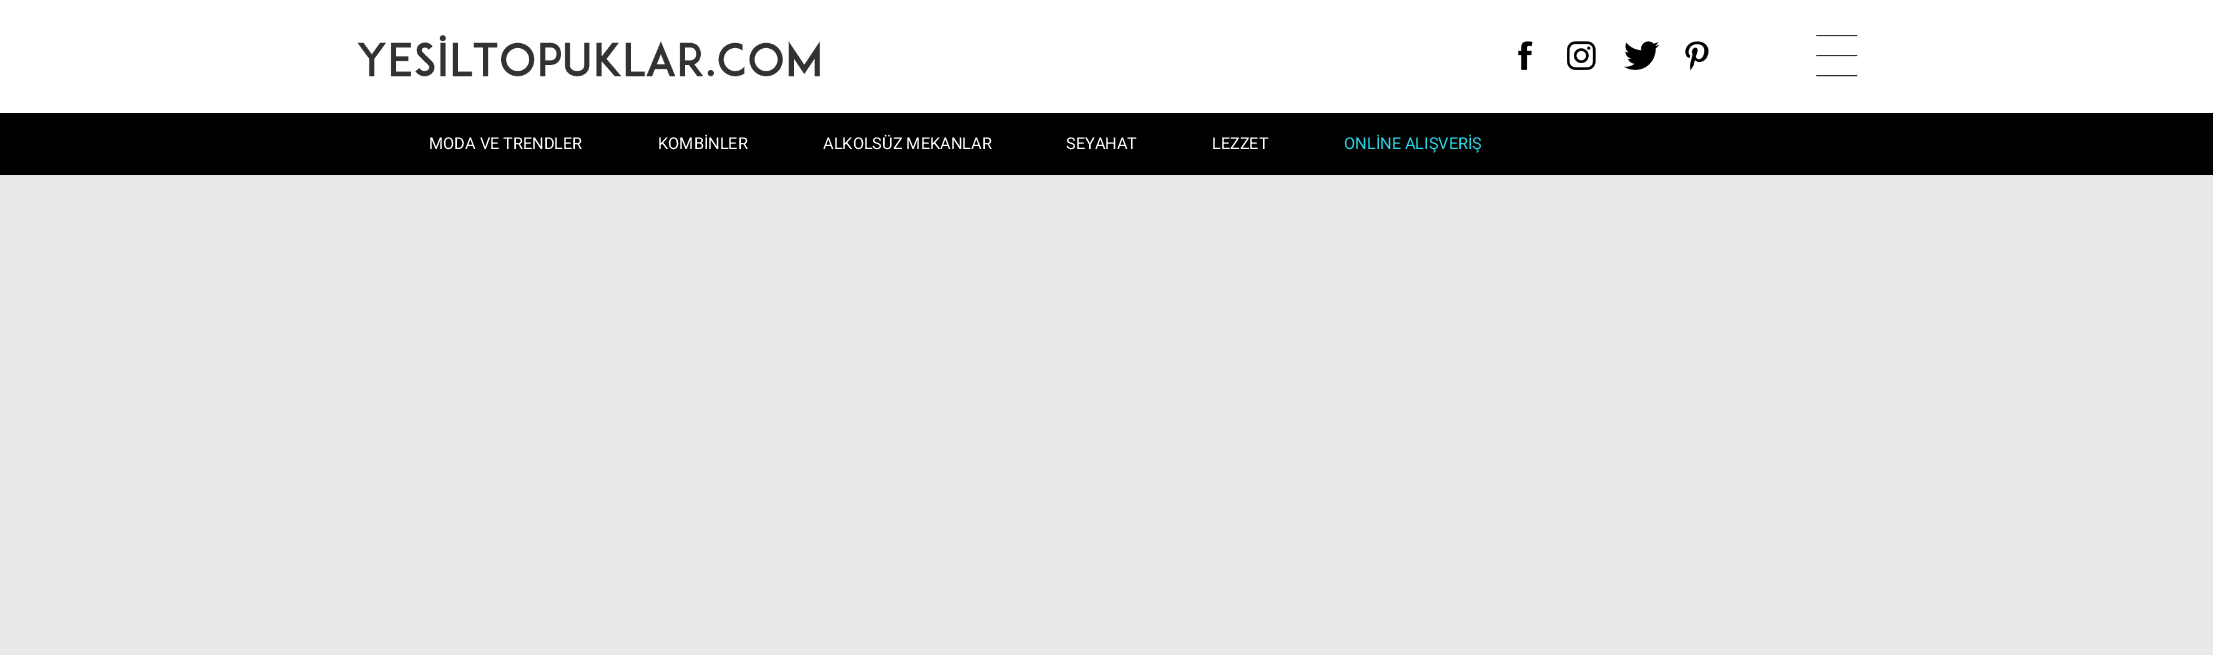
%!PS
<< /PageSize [2213 655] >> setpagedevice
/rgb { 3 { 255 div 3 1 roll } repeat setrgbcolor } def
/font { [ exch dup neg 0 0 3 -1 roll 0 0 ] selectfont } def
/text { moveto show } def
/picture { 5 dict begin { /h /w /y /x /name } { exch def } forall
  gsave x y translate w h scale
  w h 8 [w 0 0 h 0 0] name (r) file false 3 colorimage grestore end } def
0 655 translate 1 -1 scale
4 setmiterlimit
255 255 255 rgb
0 0 2213 655 rectfill
(img_01.rgb) 357 35 463 42 picture
(img_02.rgb) 1518 41 15 29 picture
(img_03.rgb) 1567 41 29 29 picture
(img_04.rgb) 1623 41 37 29 picture
(img_05.rgb) 1685 41 24 29 picture
(img_06.rgb) 1816 35 42 42 picture
0 0 0 rgb
0 113 2213 62 rectfill
233 233 233 rgb
0 175 2213 480 rectfill
/Roboto-Regular 16.25 font
255 255 255 rgb
(MODA VE TRENDLER) 429 149 text
(KOMBİNLER) 658 149 text
(ALKOLSÜZ MEKANLAR) 823 149 text
(SEYAHAT) 1066 149 text
(LEZZET) 1212 149 text
41 214 230 rgb
(ONLİNE ALIŞVERİŞ) 1344 149 text
showpage
